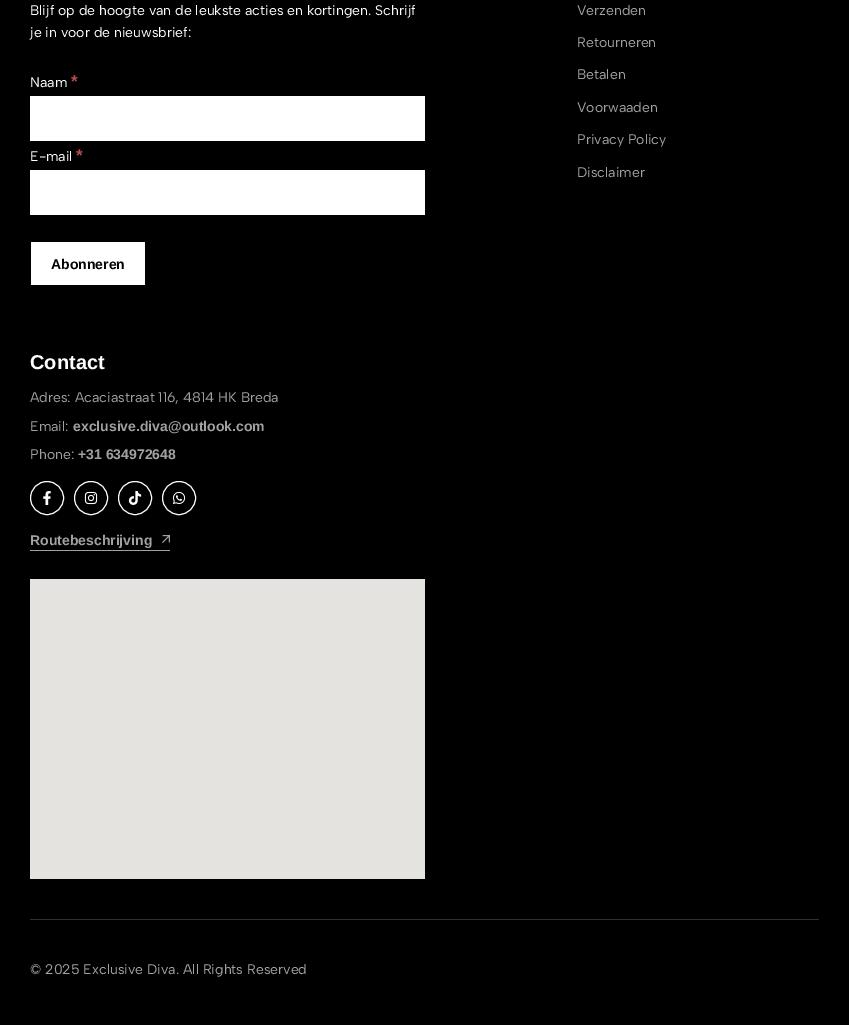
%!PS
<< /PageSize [849 1025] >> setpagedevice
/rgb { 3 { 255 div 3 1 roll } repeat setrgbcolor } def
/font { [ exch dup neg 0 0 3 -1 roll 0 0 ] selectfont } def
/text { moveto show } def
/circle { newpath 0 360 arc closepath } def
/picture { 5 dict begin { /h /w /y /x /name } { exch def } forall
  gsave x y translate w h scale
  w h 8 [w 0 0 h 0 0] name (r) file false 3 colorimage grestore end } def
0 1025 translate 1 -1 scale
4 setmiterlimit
0 0 0 rgb
0 0 849 1025 rectfill
255 255 255 rgb
30 96 395 45 rectfill
30 170 395 45 rectfill
31 242 114 43 rectfill
47 498 16.5 circle stroke
(img_01.rgb) 43 491 8 14 picture
91 498 16.5 circle stroke
(img_02.rgb) 84 491 14 14 picture
135 498 16.5 circle stroke
(img_03.rgb) 128 491 14 14 picture
179 498 16.5 circle stroke
(img_04.rgb) 172 491 14 13 picture
161 161 161 rgb
30 550 140 1 rectfill
(img_05.rgb) 162 535 8 8 picture
229 227 223 rgb
30 579 395 300 rectfill
48 48 48 rgb
30 919 789 1 rectfill
/AlbertSans-Regular 14 font
255 255 255 rgb
(Blijf op de hoogte van de leukste acties en kortingen. Schrijf) 30 15 text
(je in voor de nieuwsbrief:) 30 37 text
(Naam) 30 87 text
/LiberationSans-Bold 17 font
191 77 77 rgb
(*) 71 87 text
/AlbertSans-Regular 14 font
255 255 255 rgb
(E-mail) 30 161 text
/LiberationSans-Bold 17 font
191 77 77 rgb
(*) 76 161 text
/LiberationSans-Bold 14 font
0 0 0 rgb
(Abonneren) 51 269 text
/AlbertSans-Regular 14 font
161 161 161 rgb
(Verzenden) 577 15 text
(Retourneren) 577 47 text
(Betalen) 577 79 text
(Voorwaaden) 577 112 text
(Privacy Policy) 577 144 text
(Disclaimer) 577 177 text
/LiberationSans-Bold 20 font
255 255 255 rgb
(Contact) 30 369 text
/AlbertSans-Regular 14 font
161 161 161 rgb
(Adres: Acaciastraat 116, 4814 HK Breda) 30 402 text
(Email:) 30 431 text
/LiberationSans-Bold 14 font
(exclusive.diva@outlook.com) 73 431 text
/AlbertSans-Regular 14 font
(Phone:) 30 459 text
/LiberationSans-Bold 14 font
(+31 634972648) 78 459 text
(Routebeschrijving) 30 545 text
/AlbertSans-Regular 14 font
(© 2025 Exclusive Diva. All Rights Reserved) 30 974 text
showpage
